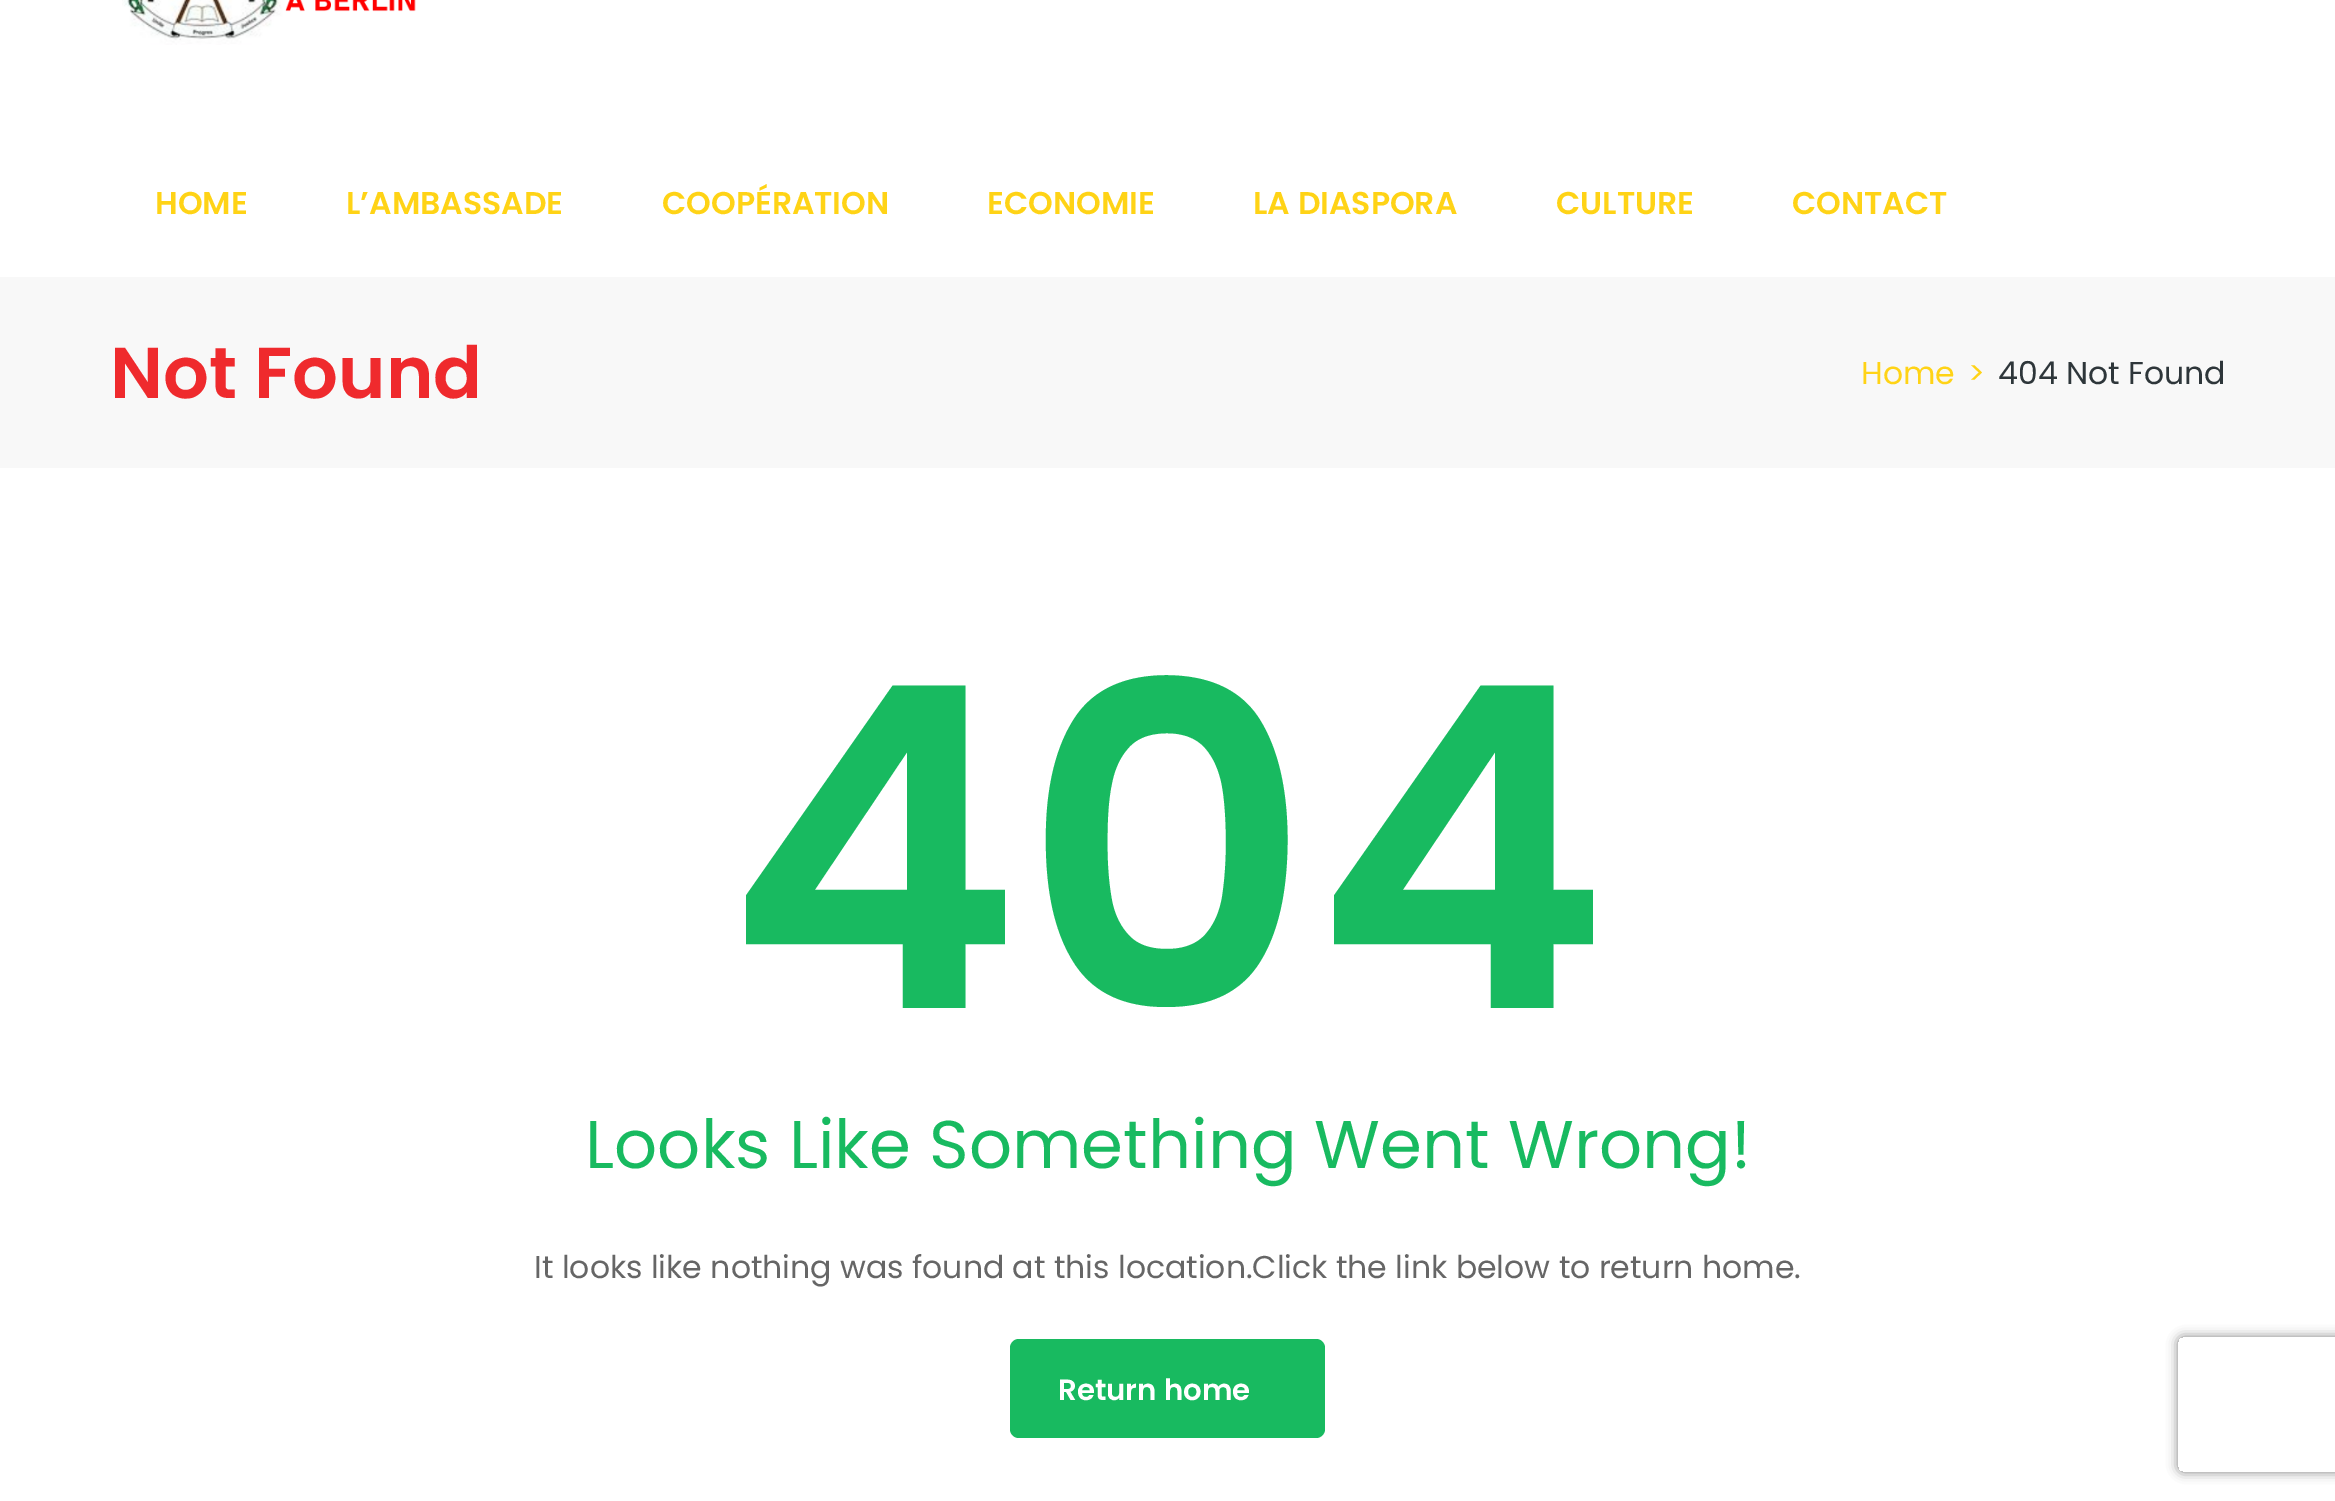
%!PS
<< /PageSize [2335 1501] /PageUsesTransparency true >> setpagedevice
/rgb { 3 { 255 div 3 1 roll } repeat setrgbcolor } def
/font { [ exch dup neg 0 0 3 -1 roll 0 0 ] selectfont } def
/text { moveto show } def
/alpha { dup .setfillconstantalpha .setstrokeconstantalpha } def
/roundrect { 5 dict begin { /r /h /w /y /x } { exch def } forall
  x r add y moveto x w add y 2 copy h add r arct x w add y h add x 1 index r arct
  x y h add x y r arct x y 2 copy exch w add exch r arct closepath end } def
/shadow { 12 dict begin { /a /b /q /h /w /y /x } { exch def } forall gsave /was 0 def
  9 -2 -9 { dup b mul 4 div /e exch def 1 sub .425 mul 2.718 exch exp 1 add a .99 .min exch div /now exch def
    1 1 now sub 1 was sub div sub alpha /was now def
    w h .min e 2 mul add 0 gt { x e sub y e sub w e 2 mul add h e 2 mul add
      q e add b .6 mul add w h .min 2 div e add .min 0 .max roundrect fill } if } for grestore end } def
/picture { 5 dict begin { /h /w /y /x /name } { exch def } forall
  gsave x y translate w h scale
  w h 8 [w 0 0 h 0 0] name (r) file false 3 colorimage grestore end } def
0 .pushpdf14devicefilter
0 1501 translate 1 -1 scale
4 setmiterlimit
255 255 255 rgb
0 0 2335 1501 rectfill
(img_01.rgb) 122 0 294 45 picture
248 248 248 rgb
0 277 2335 191 rectfill
24 186 96 rgb
1010 1339 315 99 9 roundrect fill
gsave
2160 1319 moveto 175 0 rlineto 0 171 rlineto -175 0 rlineto closepath 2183 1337 moveto 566 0 rlineto 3 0 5 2 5 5 rcurveto 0 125 rlineto 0 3 -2 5 -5 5 rcurveto -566 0 rlineto -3 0 -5 -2 -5 -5 rcurveto 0 -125 rlineto 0 -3 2 -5 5 -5 rcurveto closepath eoclip newpath
128 128 128 rgb
2178 1337 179 135 5 5.5 1 shadow
grestore
/Poppins-SemiBold 31.5 font
255 211 22 rgb
(HOME) 155 214 text
(L’AMBASSADE) 346 214 text
(COOPÉRATION) 662 214 text
(ECONOMIE) 987 214 text
(LA DIASPORA) 1253 214 text
(CULTURE) 1556 214 text
(CONTACT) 1792 214 text
/Poppins-SemiBold 72 font
239 42 45 rgb
(Not Found) 110 398 text
/Poppins-Regular 31.5 font
255 211 22 rgb
(Home) 1861 384 text
(>) 1968 384 text
46 54 58 rgb
(404 Not Found) 1998 384 text
/Poppins-SemiBold 450 font
24 186 96 rgb
(404) 725 1008 text
/Poppins-Regular 67.5 font
(Looks Like Something Went Wrong!) 585 1168 text
/Poppins-Regular 31.5 font
102 102 102 rgb
(It looks like nothing was found at this location.Click the link below to return home.) 534 1278 text
/Poppins-SemiBold 29.25 font
255 255 255 rgb
(Return home) 1058 1400 text
.poppdf14devicefilter showpage
